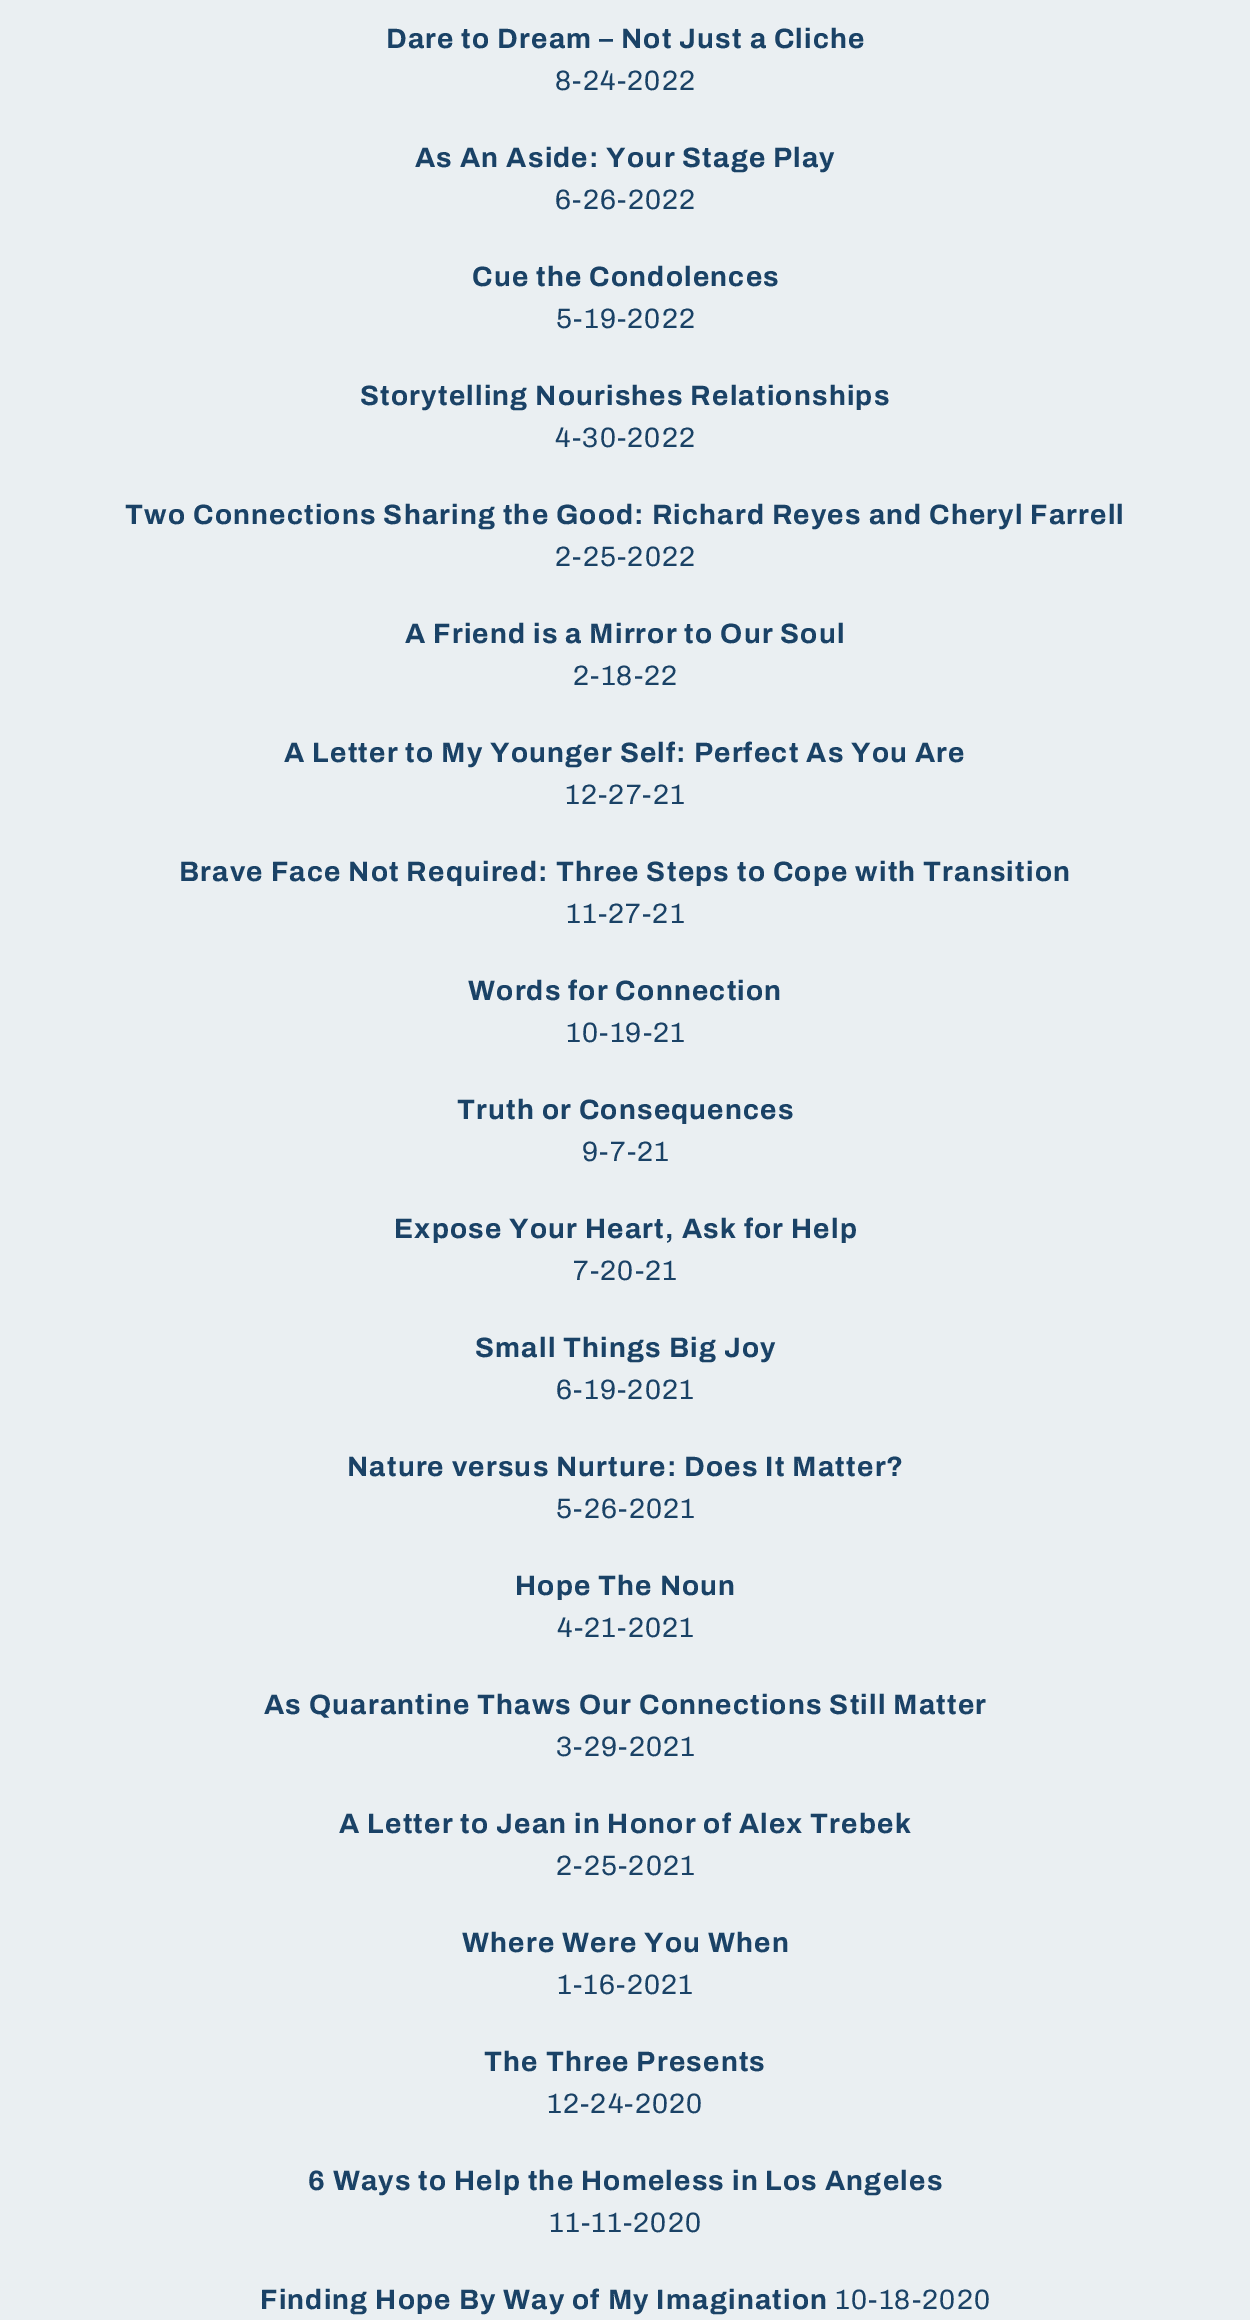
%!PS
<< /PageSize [1250 2320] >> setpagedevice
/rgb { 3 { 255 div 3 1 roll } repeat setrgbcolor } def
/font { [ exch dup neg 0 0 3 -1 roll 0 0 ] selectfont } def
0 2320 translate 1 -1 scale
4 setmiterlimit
234 239 242 rgb
0 0 1250 2320 rectfill
/Archivo-Bold 28 font
26 66 102 rgb
386 48 moveto 1.22 0 (Dare to Dream – Not Just a Cliche) ashow
/Archivo-Regular 28 font
555 90 moveto 1.22 0 (8-24-2022) ashow
/Archivo-Bold 28 font
415 167 moveto 1.22 0 (As An Aside: Your Stage Play) ashow
/Archivo-Regular 28 font
555 209 moveto 1.22 0 (6-26-2022) ashow
/Archivo-Bold 28 font
472 286 moveto 1.22 0 (Cue the Condolences) ashow
/Archivo-Regular 28 font
556 328 moveto 1.22 0 (5-19-2022) ashow
/Archivo-Bold 28 font
360 405 moveto 1.22 0 (Storytelling Nourishes Relationships) ashow
/Archivo-Regular 28 font
555 447 moveto 1.22 0 (4-30-2022) ashow
/Archivo-Bold 28 font
125 524 moveto 1.22 0 (Two Connections Sharing the Good: Richard Reyes and Cheryl Farrell) ashow
/Archivo-Regular 28 font
555 566 moveto 1.22 0 (2-25-2022) ashow
/Archivo-Bold 28 font
405 643 moveto 1.22 0 (A Friend is a Mirror to Our Soul) ashow
/Archivo-Regular 28 font
573 685 moveto 1.22 0 (2-18-22) ashow
/Archivo-Bold 28 font
284 762 moveto 1.22 0 (A Letter to My Younger Self: Perfect As You Are) ashow
/Archivo-Regular 28 font
565 804 moveto 1.22 0 (12-27-21) ashow
/Archivo-Bold 28 font
179 881 moveto 1.22 0 (Brave Face Not Required: Three Steps to Cope with Transition) ashow
/Archivo-Regular 28 font
566 923 moveto 1.22 0 (11-27-21) ashow
/Archivo-Bold 28 font
468 1000 moveto 1.22 0 (Words for Connection) ashow
/Archivo-Regular 28 font
566 1042 moveto 1.22 0 (10-19-21) ashow
/Archivo-Bold 28 font
457 1119 moveto 1.22 0 (Truth or Consequences) ashow
/Archivo-Regular 28 font
582 1161 moveto 1.22 0 (9-7-21) ashow
/Archivo-Bold 28 font
394 1238 moveto 1.22 0 (Expose Your Heart, Ask for Help) ashow
/Archivo-Regular 28 font
573 1280 moveto 1.22 0 (7-20-21) ashow
/Archivo-Bold 28 font
475 1357 moveto 1.22 0 (Small Things Big Joy) ashow
/Archivo-Regular 28 font
556 1399 moveto 1.22 0 (6-19-2021) ashow
/Archivo-Bold 28 font
347 1476 moveto 1.22 0 (Nature versus Nurture: Does It Matter?) ashow
/Archivo-Regular 28 font
556 1518 moveto 1.22 0 (5-26-2021) ashow
/Archivo-Bold 28 font
515 1595 moveto 1.22 0 (Hope The Noun) ashow
/Archivo-Regular 28 font
557 1637 moveto 1.22 0 (4-21-2021) ashow
/Archivo-Bold 28 font
264 1714 moveto 1.22 0 (As Quarantine Thaws Our Connections Still Matter) ashow
/Archivo-Regular 28 font
556 1756 moveto 1.22 0 (3-29-2021) ashow
/Archivo-Bold 28 font
339 1833 moveto 1.22 0 (A Letter to Jean in Honor of Alex Trebek) ashow
/Archivo-Regular 28 font
556 1875 moveto 1.22 0 (2-25-2021) ashow
/Archivo-Bold 28 font
462 1952 moveto 1.22 0 (Where Were You When) ashow
/Archivo-Regular 28 font
557 1994 moveto 1.22 0 (1-16-2021) ashow
/Archivo-Bold 28 font
484 2071 moveto 1.22 0 (The Three Presents) ashow
/Archivo-Regular 28 font
547 2113 moveto 1.22 0 (12-24-2020) ashow
/Archivo-Bold 28 font
308 2190 moveto 1.22 0 (6 Ways to Help the Homeless in Los Angeles) ashow
/Archivo-Regular 28 font
549 2232 moveto 1.22 0 (11-11-2020) ashow
/Archivo-Bold 28 font
260 2309 moveto 1.22 0 (Finding Hope By Way of My Imagination) ashow
/Archivo-Regular 28 font
835 2309 moveto 1.22 0 (10-18-2020) ashow
showpage
